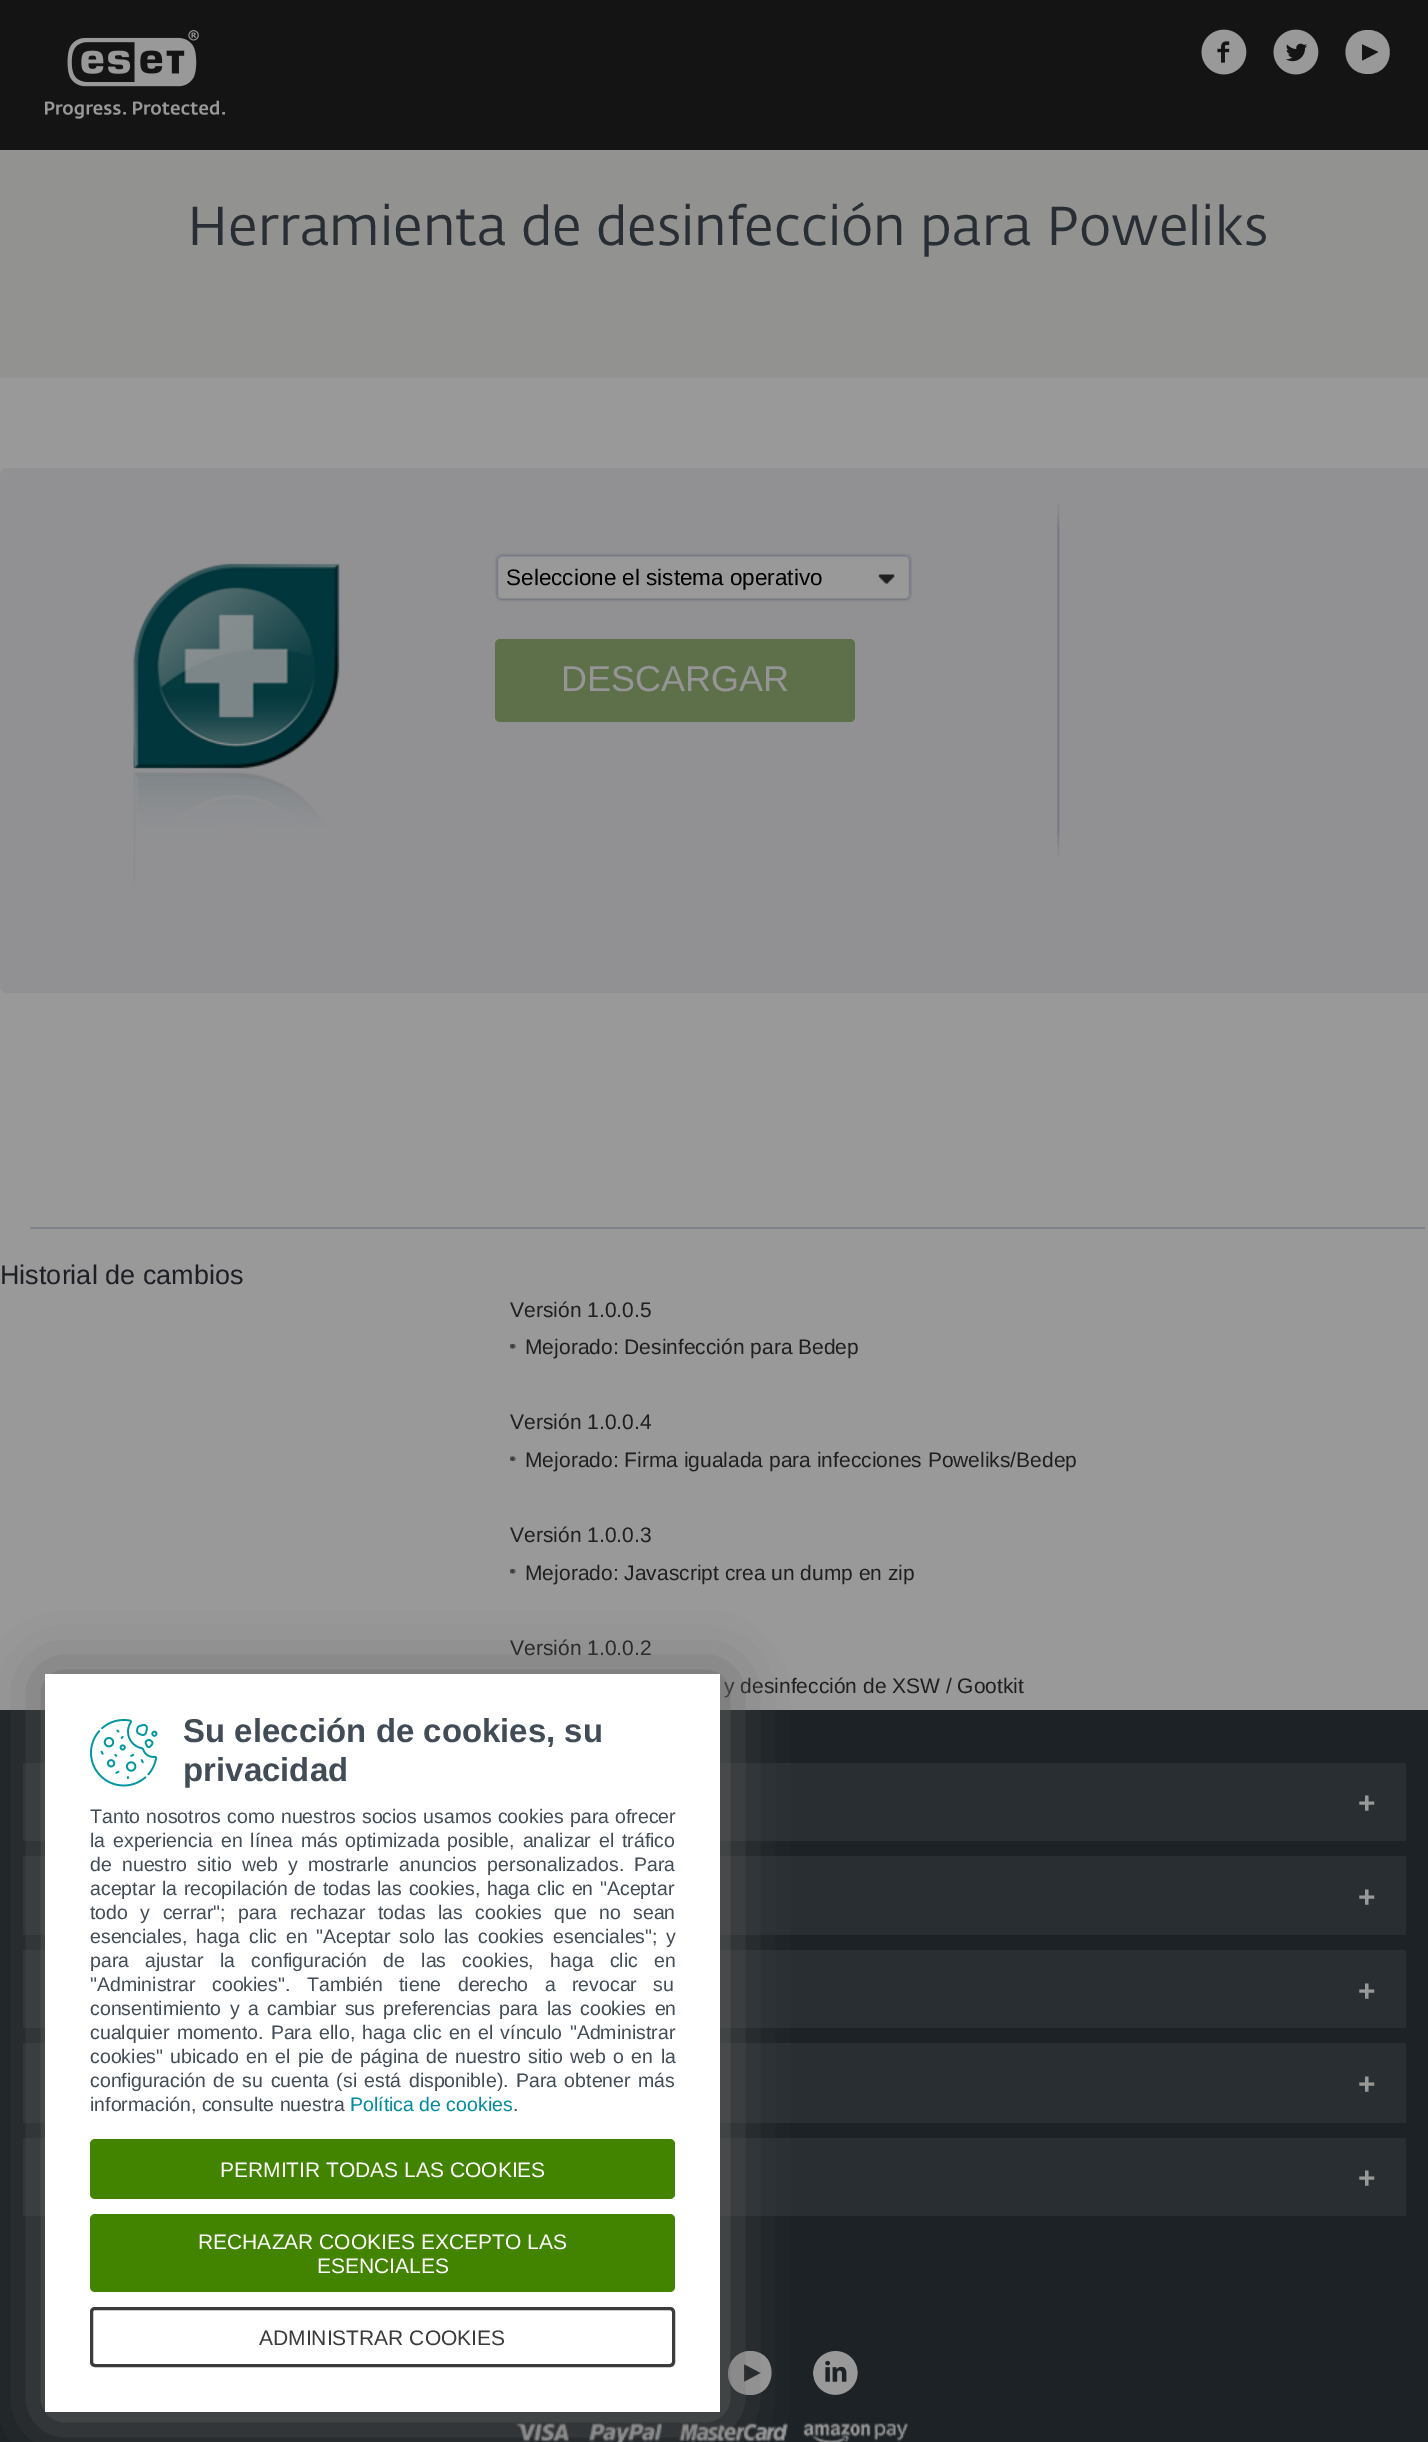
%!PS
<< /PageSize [1428 2442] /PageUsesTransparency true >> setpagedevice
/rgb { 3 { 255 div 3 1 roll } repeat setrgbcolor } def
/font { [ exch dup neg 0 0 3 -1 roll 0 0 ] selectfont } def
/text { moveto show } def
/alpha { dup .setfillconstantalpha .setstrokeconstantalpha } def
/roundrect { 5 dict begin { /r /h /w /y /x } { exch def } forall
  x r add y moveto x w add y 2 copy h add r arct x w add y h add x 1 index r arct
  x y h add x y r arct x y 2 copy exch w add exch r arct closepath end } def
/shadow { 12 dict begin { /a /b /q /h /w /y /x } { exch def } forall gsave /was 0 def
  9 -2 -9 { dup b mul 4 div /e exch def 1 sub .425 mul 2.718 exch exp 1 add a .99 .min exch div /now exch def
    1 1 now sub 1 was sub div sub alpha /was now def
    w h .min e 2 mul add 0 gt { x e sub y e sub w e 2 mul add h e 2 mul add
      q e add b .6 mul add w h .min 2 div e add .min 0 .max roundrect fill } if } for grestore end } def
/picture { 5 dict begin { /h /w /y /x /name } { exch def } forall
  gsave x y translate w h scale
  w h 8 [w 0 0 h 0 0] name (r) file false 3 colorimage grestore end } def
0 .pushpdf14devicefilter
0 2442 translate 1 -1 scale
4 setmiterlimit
255 255 255 rgb
0 0 1428 2442 rectfill
34 34 34 rgb
0 0 1428 150 rectfill
(img_01.rgb) 45 30 180 89 picture
(img_02.rgb) 1201 29 46 46 picture
(img_03.rgb) 1273 29 46 46 picture
255 255 255 rgb
1362 61 moveto 0 -17 rlineto 17 8 rlineto closepath 1368 30 moveto -30 0 -30 44 0 44 rcurveto 29 0 29 -44 0 -44 rcurveto closepath fill
243 244 242 rgb
0 150 1428 228 rectfill
241 242 246 rgb
8 468 moveto 1420 0 rlineto 0 525 rlineto -1420 0 rlineto -4.5 0 -8 -3.5 -8 -8 rcurveto 0 -509 rlineto 0 -4.5 3.5 -8 8 -8 rcurveto closepath fill
(img_04.rgb) 133 563 207 325 picture
(img_05.rgb) 495 553 417 49 picture
157 187 123 rgb
495 639 360 83 5 roundrect fill
(img_06.rgb) 1057 502 3 355 picture
213 218 228 rgb
30 1227 1395 2 rectfill
(img_07.rgb) 510 1344 6 5 picture
(img_08.rgb) 510 1456 6 5 picture
(img_07.rgb) 510 1569 6 5 picture
49 57 64 rgb
0 1710 1428 732 rectfill
69 77 83 rgb
23 1763 1383 78 rectfill
23 1856 1383 79 rectfill
23 1950 1383 78 rectfill
23 2043 1383 80 rectfill
23 2138 1383 78 rectfill
255 255 255 rgb
750 2351 moveto -12 0 -22 10 -22 23 rcurveto 0 6 3 12 7 16 rcurveto 4 3 9 5 15 5 rcurveto 20 0 26 -22 18 -35 rcurveto -4 -6 -10 -9 -18 -9 rcurveto closepath 744 2382 moveto 17 -9 rlineto -17 -9 rlineto closepath eofill
(img_09.rgb) 813 2351 45 44 picture
(img_10.rgb) 515 2423 393 19 picture
/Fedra-Regular 54 font
66 76 86 rgb
(Herramienta de desinfección para Poweliks) 187 245 text
/LiberationSans-Regular 22.5 font
0 0 0 rgb
(Seleccione el sistema operativo) 506 585 text
/LiberationSans-Regular 36 font
248 249 251 rgb
(DESCARGAR) 561 691 text
/LiberationSans-Regular 27 font
48 52 62 rgb
(Historial de cambios) 0 1284 text
/LiberationSans-Regular 21 font
51 51 51 rgb
(Versión 1.0.0.5) 510 1317 text
(Mejorado: Desinfección para Bedep) 525 1354 text
(Versión 1.0.0.4) 510 1429 text
(Mejorado: Firma igualada para infecciones Poweliks/Bedep) 525 1467 text
(Versión 1.0.0.3) 510 1542 text
(Mejorado: Javascript crea un dump en zip) 525 1580 text
(Versión 1.0.0.2) 510 1655 text
(y desinfección de XSW / Gootkit) 724 1693 text
/LiberationSans-Bold 30 font
255 255 255 rgb
(+) 1358 1813 text
(+) 1358 1907 text
(+) 1358 2001 text
(+) 1358 2094 text
(+) 1358 2188 text
0.4 alpha
0 0 0 rgb
2442 setlinewidth
-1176 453 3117 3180 rectstroke
1 alpha
102 102 102 rgb
48 1677 675 738 0 30 1 shadow
255 255 255 rgb
45 1674 675 738 rectfill
/LiberationSans-Bold 33 font
66 76 86 rgb
(Su elección de cookies, su) 183 1742 text
(privacidad) 183 1781 text
/LiberationSans-Regular 19.5 font
90 1823 moveto 0.75 0 32 (Tanto nosotros como nuestros socios usamos cookies para ofrecer) widthshow
90 1847 moveto 2.5 0 32 (la experiencia en línea más optimizada posible, analizar el tráfico) widthshow
90 1871 moveto 4.75 0 32 (de nuestro sitio web y mostrarle anuncios personalizados. Para) widthshow
90 1895 moveto 1.25 0 32 (aceptar la recopilación de todas las cookies, haga clic en "Aceptar) widthshow
90 1919 moveto 7 0 32 (todo y cerrar"; para rechazar todas las cookies que no sean) widthshow
90 1943 moveto 3.5 0 32 (esenciales, haga clic en "Aceptar solo las cookies esenciales"; y) widthshow
90 1967 moveto 10.75 0 32 (para ajustar la configuración de las cookies, haga clic en) widthshow
90 1991 moveto 11 0 32 ("Administrar cookies". También tiene derecho a revocar su) widthshow
90 2015 moveto 3 0 32 (consentimiento y a cambiar sus preferencias para las cookies en) widthshow
90 2039 moveto 2 0 32 (cualquier momento. Para ello, haga clic en el vínculo "Administrar) widthshow
90 2063 moveto 2 0 32 (cookies" ubicado en el pie de página de nuestro sitio web o en la) widthshow
90 2087 moveto 2 0 32 (configuración de su cuenta \(si está disponible\). Para obtener más) widthshow
(información, consulte nuestra) 90 2111 text
0 139 160 rgb
(Política de cookies) 350 2111 text
66 76 86 rgb
(.) 513 2111 text
(img_11.rgb) 90 1719 68 68 picture
66 132 0 rgb
90 2139 585 60 5 roundrect fill
/LiberationSans-Regular 21 font
255 255 255 rgb
(PERMITIR TODAS LAS COOKIES) 220 2177 text
66 132 0 rgb
90 2214 585 78 5 roundrect fill
255 255 255 rgb
(RECHAZAR COOKIES EXCEPTO LAS) 198 2249 text
(ESENCIALES) 317 2273 text
59 59 59 rgb
3 setlinewidth
91.5 2308.5 582 57 3.5 roundrect stroke
(ADMINISTRAR COOKIES) 259 2345 text
.poppdf14devicefilter showpage
